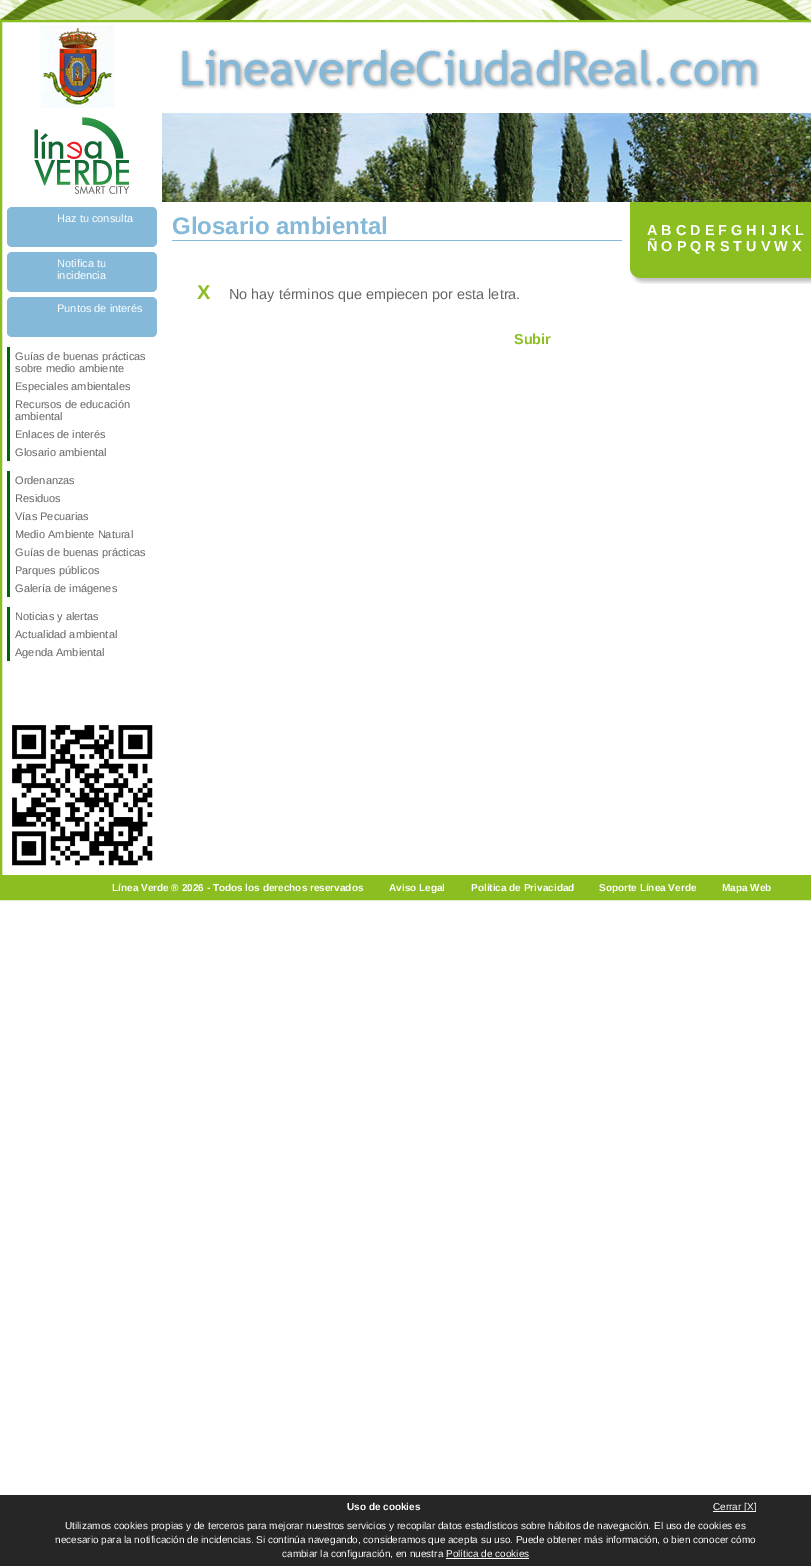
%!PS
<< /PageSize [811 1566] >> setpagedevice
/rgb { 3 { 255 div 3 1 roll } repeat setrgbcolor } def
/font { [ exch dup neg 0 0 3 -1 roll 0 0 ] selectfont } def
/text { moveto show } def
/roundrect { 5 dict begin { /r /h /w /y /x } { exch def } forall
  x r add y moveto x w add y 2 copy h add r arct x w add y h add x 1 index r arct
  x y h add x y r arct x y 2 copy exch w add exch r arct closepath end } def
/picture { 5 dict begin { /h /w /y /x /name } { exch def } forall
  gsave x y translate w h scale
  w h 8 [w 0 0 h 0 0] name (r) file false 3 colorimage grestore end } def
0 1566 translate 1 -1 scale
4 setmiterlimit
255 255 255 rgb
0 0 811 1566 rectfill
(img_01.rgb) 0 0 811 20 picture
139 190 33 rgb
2 setlinewidth
1 21 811 878 rectstroke
(img_02.rgb) 40 25 720 83 picture
(img_03.rgb) 34 117 96 77 picture
(img_04.rgb) 162 112 649 90 picture
132 185 217 rgb
7 207 150 40 5 roundrect fill
7 252 150 40 5 roundrect fill
7 297 150 40 5 roundrect fill
0 102 0 rgb
7 347 3 114 rectfill
7 471 3 126 rectfill
7 607 3 54 rectfill
(img_05.rgb) 12 725 141 141 picture
132 185 217 rgb
172 240 450 1 rectfill
(img_06.rgb) 622 202 189 82 picture
139 190 33 rgb
2 875 809 23 rectfill
38 38 38 rgb
0 1495 811 71 rectfill
255 255 255 rgb
713 1511 43 1 rectfill
446 1558 83 1 rectfill
/LiberationSans-Regular 11 font
(Haz tu consulta) 57 222 text
(Notifica tu) 57 267 text
(incidencia) 57 279 text
(Puntos de interés) 57 312 text
102 102 102 rgb
(Guías de buenas prácticas) 15 360 text
(sobre medio ambiente) 15 372 text
(Especiales ambientales) 15 390 text
(Recursos de educación) 15 408 text
(ambiental) 15 420 text
(Enlaces de interés) 15 438 text
(Glosario ambiental) 15 456 text
(Ordenanzas) 15 484 text
(Residuos) 15 502 text
(Vías Pecuarias) 15 520 text
(Medio Ambiente Natural) 15 538 text
(Guías de buenas prácticas) 15 556 text
(Parques públicos) 15 574 text
(Galería de imágenes) 15 592 text
(Noticias y alertas) 15 620 text
(Actualidad ambiental) 15 638 text
(Agenda Ambiental) 15 656 text
/LiberationSans-Bold 24 font
132 185 217 rgb
(Glosario ambiental) 172 234 text
/LiberationSans-Bold 14.4 font
255 255 255 rgb
(A B C D E F G H I J K L) 647 235 text
(Ñ O P Q R S T U V W X) 647 251 text
/LiberationSans-Bold 20 font
139 190 33 rgb
(X) 197 299 text
/LiberationSans-Regular 14.4 font
102 102 102 rgb
(No hay términos que empiecen por esta letra.) 229 299 text
/LiberationSans-Bold 14.4 font
139 190 33 rgb
(Subir) 514 344 text
/LiberationSans-Bold 10 font
255 255 255 rgb
(Línea Verde ® 2026 - Todos los derechos reservados) 112 891 text
(Aviso Legal) 389 891 text
(Política de Privacidad) 471 891 text
(Soporte Línea Verde) 599 891 text
(Mapa Web) 722 891 text
(Uso de cookies) 347 1510 text
/LiberationSans-Regular 10 font
(Cerrar [X]) 713 1510 text
(Utilizamos cookies propias y de terceros para mejorar nuestros servicios y recopilar datos estadísticos sobre hábitos de navegación. El uso de cookies es) 65 1529 text
(necesario para la notificación de incidencias. Si continúa navegando, consideramos que acepta su uso. Puede obtener más información, o bien conocer cómo) 55 1543 text
(cambiar la configuración, en nuestra Política de cookies) 282 1557 text
showpage
